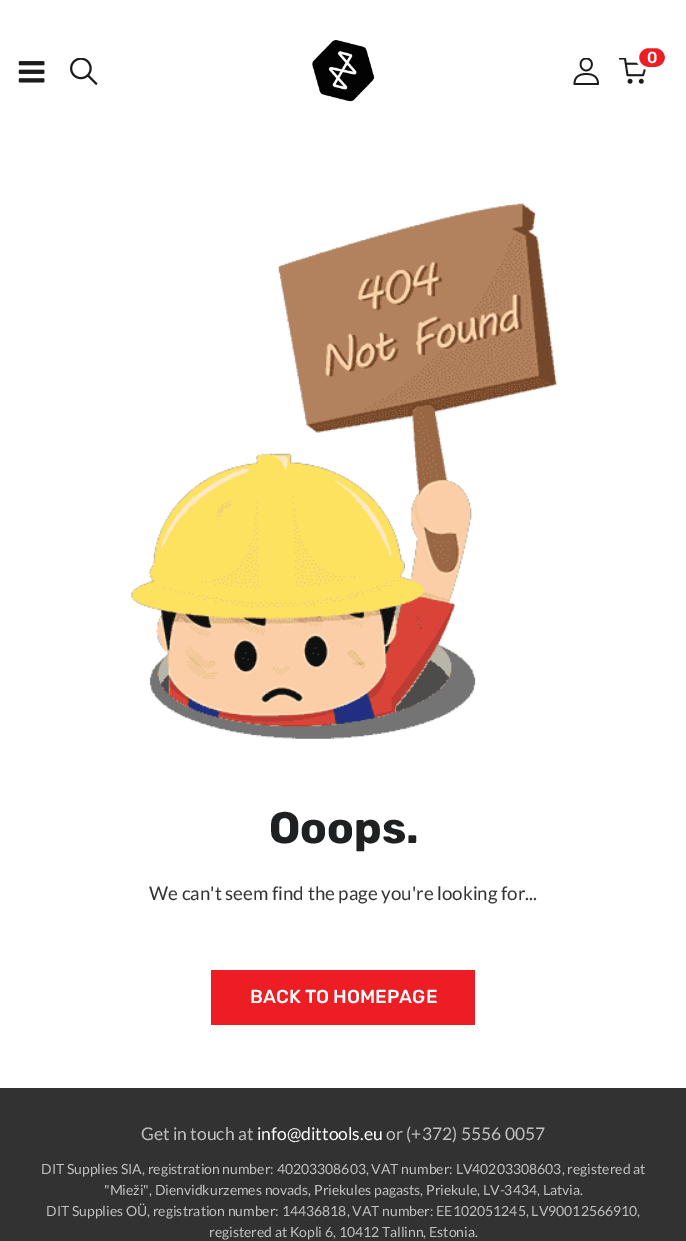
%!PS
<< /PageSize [686 1241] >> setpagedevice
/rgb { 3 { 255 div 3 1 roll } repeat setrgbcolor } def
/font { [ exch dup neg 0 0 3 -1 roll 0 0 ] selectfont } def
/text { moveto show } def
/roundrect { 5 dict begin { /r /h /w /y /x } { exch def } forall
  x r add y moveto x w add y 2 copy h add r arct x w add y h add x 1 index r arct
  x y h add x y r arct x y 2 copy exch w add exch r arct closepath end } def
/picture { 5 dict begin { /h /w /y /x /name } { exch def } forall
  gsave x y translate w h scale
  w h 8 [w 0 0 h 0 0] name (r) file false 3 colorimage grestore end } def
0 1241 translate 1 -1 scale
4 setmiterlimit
255 255 255 rgb
0 0 686 1241 rectfill
(img_01.rgb) 18 61 27 22 picture
(img_02.rgb) 70 58 28 27 picture
(img_03.rgb) 312 40 63 62 picture
(img_04.rgb) 573 58 27 27 picture
(img_05.rgb) 619 58 27 26 picture
237 29 36 rgb
637.5 46.5 29 22 11 roundrect gsave fill grestore
255 255 255 rgb
3 setlinewidth
stroke
(img_06.rgb) 131 203 426 536 picture
237 29 36 rgb
211 970 264 55 rectfill
50 50 50 rgb
0 1088 686 153 rectfill
/Rubik-Medium 16 font
255 255 255 rgb
(0) 647 63 text
/Rubik-Bold 44 font
31 32 33 rgb
(Ooops.) 269 843 text
/Lato-Regular 18.75 font
51 51 51 rgb
(We can't seem find the page you're looking for...) 149 900 text
/Rubik-Medium 18.75 font
255 255 255 rgb
(BACK TO HOMEPAGE) 250 1003 text
/Lato-Regular 17.5 font
193 193 193 rgb
(Get in touch at) 141 1140 text
255 255 255 rgb
(info@dittools.eu) 257 1140 text
193 193 193 rgb
(or \(+372\) 5556 0057) 386 1140 text
/Lato-Regular 14 font
(DIT Supplies SIA, registration number: 40203308603, VAT number: LV40203308603, registered at) 41 1174 text
("Mieži", Dienvidkurzemes novads, Priekules pagasts, Priekule, LV-3434, Latvia.) 104 1195 text
(DIT Supplies OÜ, registration number: 14436818, VAT number: EE102051245, LV90012566910,) 46 1216 text
(registered at Kopli 6, 10412 Tallinn, Estonia.) 209 1237 text
showpage
